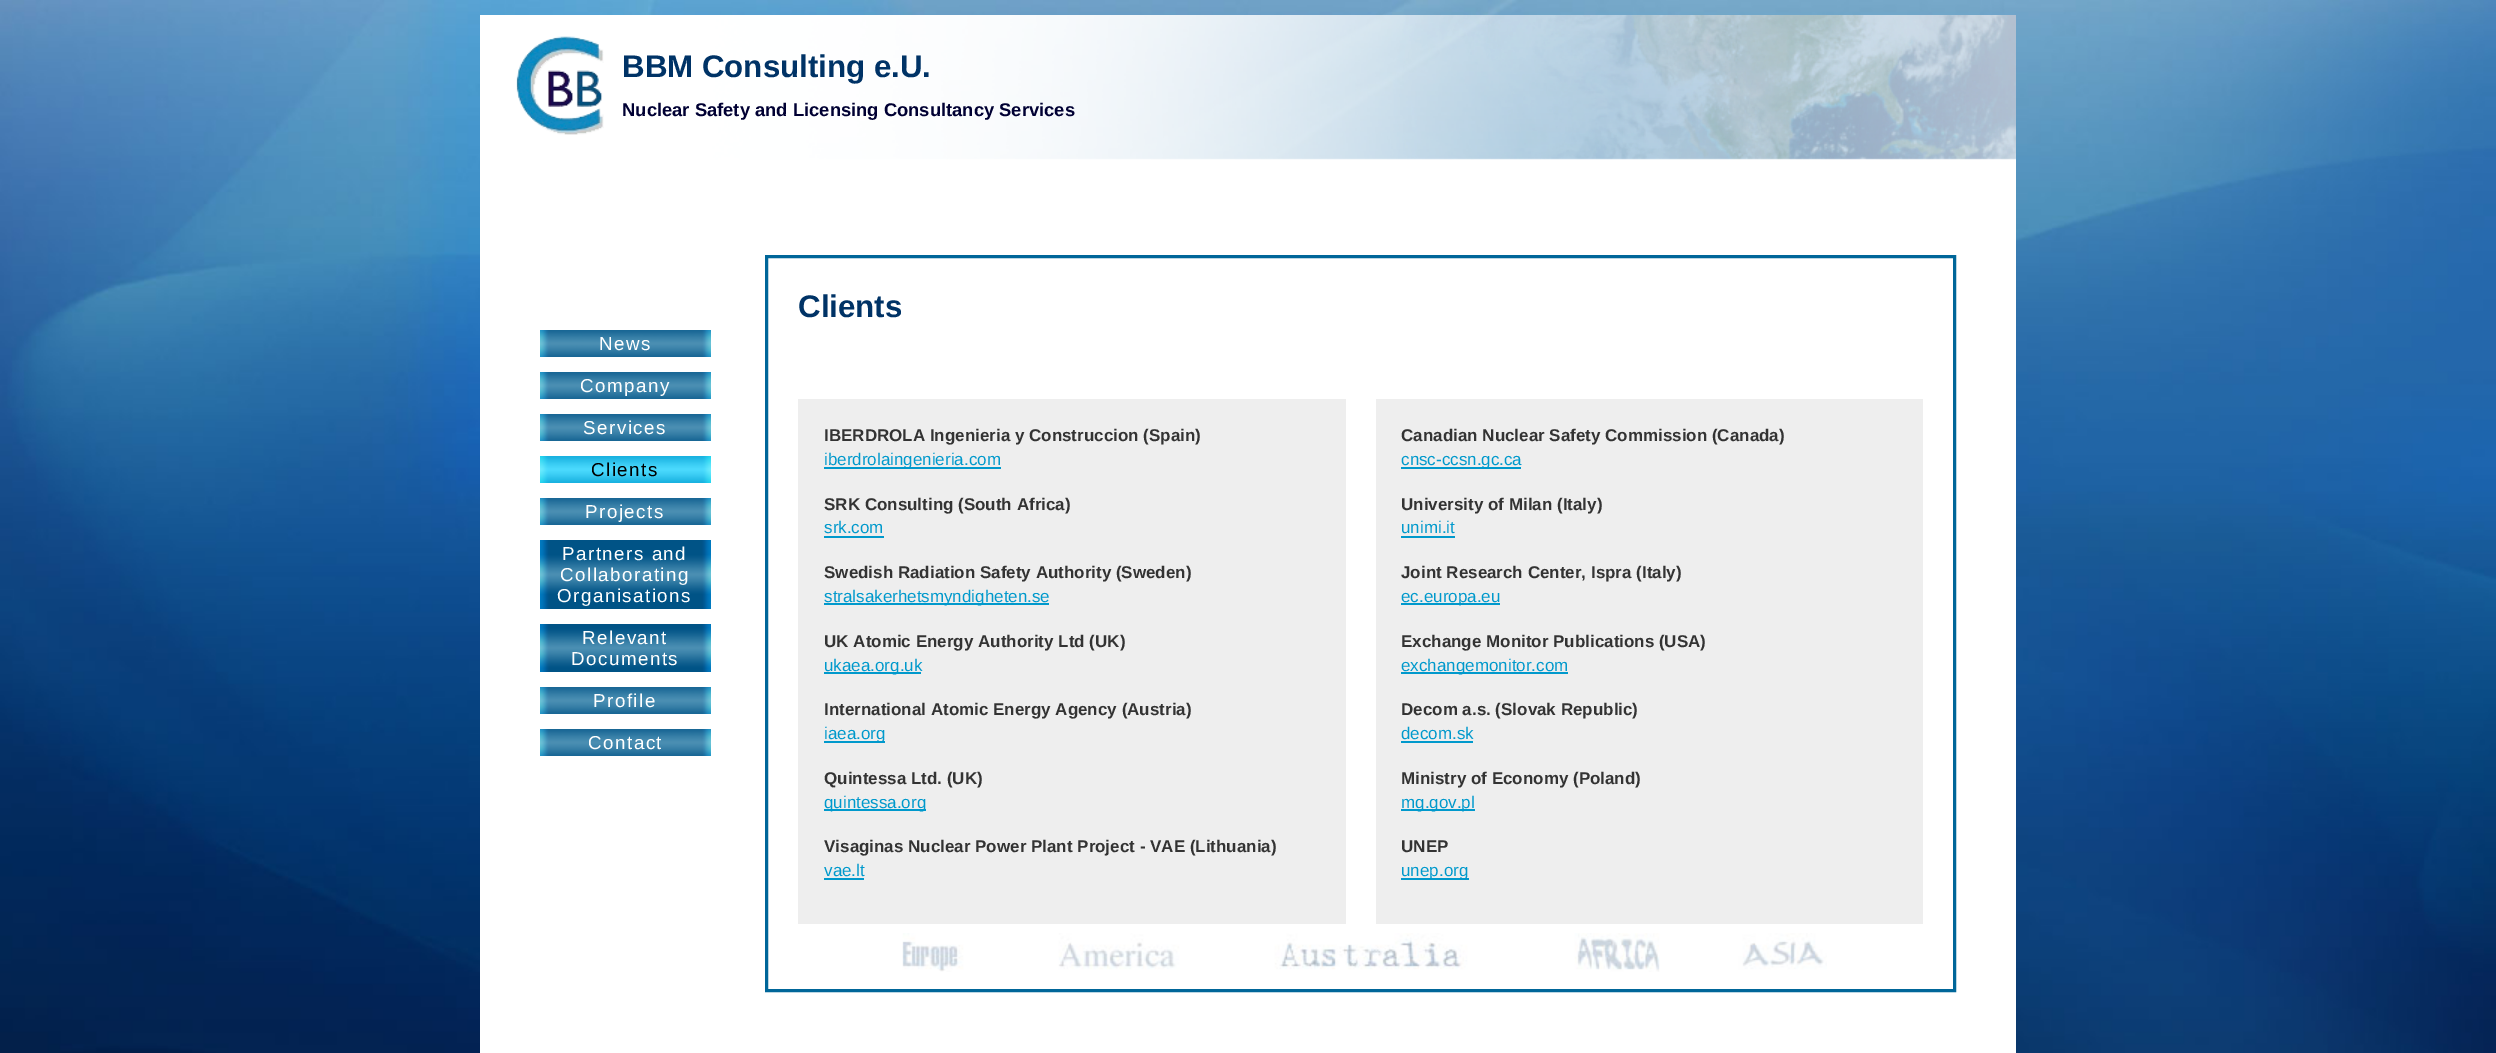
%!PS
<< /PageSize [2496 1053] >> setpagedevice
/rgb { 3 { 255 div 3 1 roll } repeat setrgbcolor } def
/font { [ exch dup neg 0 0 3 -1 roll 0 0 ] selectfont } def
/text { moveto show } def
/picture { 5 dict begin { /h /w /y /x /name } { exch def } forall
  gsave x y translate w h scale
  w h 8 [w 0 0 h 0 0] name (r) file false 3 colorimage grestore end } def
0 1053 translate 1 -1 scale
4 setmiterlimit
255 255 255 rgb
0 0 2496 1053 rectfill
(img_01.rgb) 0 0 2496 1053 picture
(img_02.rgb) 480 15 1536 1038 picture
(img_03.rgb) 516 36 88 99 picture
(img_04.rgb) 540 330 171 27 picture
(img_04.rgb) 540 372 171 27 picture
(img_04.rgb) 540 414 171 27 picture
(img_05.rgb) 540 456 171 27 picture
(img_04.rgb) 540 498 171 27 picture
(img_06.rgb) 540 540 171 69 picture
(img_07.rgb) 540 624 171 48 picture
(img_04.rgb) 540 687 171 27 picture
(img_04.rgb) 540 729 171 27 picture
0 102 153 rgb
3 setlinewidth
766.5 256.5 1188 734 rectstroke
(img_08.rgb) 902 933 925 39 picture
238 238 238 rgb
798 399 548 525 rectfill
0 153 204 rgb
824 467 177 2 rectfill
824 536 60 2 rectfill
824 603 225 2 rectfill
824 672 97 2 rectfill
824 741 61 2 rectfill
824 809 102 2 rectfill
824 878 40 2 rectfill
238 238 238 rgb
1376 399 547 525 rectfill
0 153 204 rgb
1401 467 120 2 rectfill
1401 536 54 2 rectfill
1401 603 99 2 rectfill
1401 672 167 2 rectfill
1401 741 72 2 rectfill
1401 809 74 2 rectfill
1401 878 68 2 rectfill
/LiberationSans-Bold 31.25 font
0 51 102 rgb
(BBM Consulting e.U.) 622 77 text
/LiberationSans-Bold 18.4 font
0 0 51 rgb
(Nuclear Safety and Licensing Consultancy Services) 622 116 text
/LiberationSans-Regular 18.75 font
255 255 255 rgb
599 350 moveto 1.5 0 (News) ashow
580 392 moveto 1.5 0 (Company) ashow
583 434 moveto 1.5 0 (Services) ashow
0 0 0 rgb
591 476 moveto 1.5 0 (Clients) ashow
255 255 255 rgb
585 518 moveto 1.5 0 (Projects) ashow
562 560 moveto 1.5 0 (Partners and) ashow
560 581 moveto 1.5 0 (Collaborating) ashow
557 602 moveto 1.5 0 (Organisations) ashow
582 644 moveto 1.5 0 (Relevant) ashow
571 665 moveto 1.5 0 (Documents) ashow
593 707 moveto 1.5 0 (Profile) ashow
588 749 moveto 1.5 0 (Contact) ashow
/LiberationSans-Bold 31.25 font
0 51 102 rgb
(Clients) 798 317 text
/LiberationSans-Bold 17 font
51 51 51 rgb
(IBERDROLA Ingenieria y Construccion \(Spain\)) 824 441 text
/LiberationSans-Regular 17 font
0 153 204 rgb
(iberdrolaingenieria.com) 824 465 text
/LiberationSans-Bold 17 font
51 51 51 rgb
(SRK Consulting \(South Africa\)) 824 510 text
/LiberationSans-Regular 17 font
0 153 204 rgb
(srk.com) 824 533 text
/LiberationSans-Bold 17 font
51 51 51 rgb
(Swedish Radiation Safety Authority \(Sweden\)) 824 578 text
/LiberationSans-Regular 17 font
0 153 204 rgb
(stralsakerhetsmyndigheten.se) 824 602 text
/LiberationSans-Bold 17 font
51 51 51 rgb
(UK Atomic Energy Authority Ltd \(UK\)) 824 647 text
/LiberationSans-Regular 17 font
0 153 204 rgb
(ukaea.org.uk) 824 671 text
/LiberationSans-Bold 17 font
51 51 51 rgb
(International Atomic Energy Agency \(Austria\)) 824 715 text
/LiberationSans-Regular 17 font
0 153 204 rgb
(iaea.org) 824 739 text
/LiberationSans-Bold 17 font
51 51 51 rgb
(Quintessa Ltd. \(UK\)) 824 784 text
/LiberationSans-Regular 17 font
0 153 204 rgb
(quintessa.org) 824 808 text
/LiberationSans-Bold 17 font
51 51 51 rgb
(Visaginas Nuclear Power Plant Project - VAE \(Lithuania\)) 824 852 text
/LiberationSans-Regular 17 font
0 153 204 rgb
(vae.lt) 824 876 text
/LiberationSans-Bold 17 font
51 51 51 rgb
(Canadian Nuclear Safety Commission \(Canada\)) 1401 441 text
/LiberationSans-Regular 17 font
0 153 204 rgb
(cnsc-ccsn.gc.ca) 1401 465 text
/LiberationSans-Bold 17 font
51 51 51 rgb
(University of Milan \(Italy\)) 1401 510 text
/LiberationSans-Regular 17 font
0 153 204 rgb
(unimi.it) 1401 533 text
/LiberationSans-Bold 17 font
51 51 51 rgb
(Joint Research Center, Ispra \(Italy\)) 1401 578 text
/LiberationSans-Regular 17 font
0 153 204 rgb
(ec.europa.eu) 1401 602 text
/LiberationSans-Bold 17 font
51 51 51 rgb
(Exchange Monitor Publications \(USA\)) 1401 647 text
/LiberationSans-Regular 17 font
0 153 204 rgb
(exchangemonitor.com) 1401 671 text
/LiberationSans-Bold 17 font
51 51 51 rgb
(Decom a.s. \(Slovak Republic\)) 1401 715 text
/LiberationSans-Regular 17 font
0 153 204 rgb
(decom.sk) 1401 739 text
/LiberationSans-Bold 17 font
51 51 51 rgb
(Ministry of Economy \(Poland\)) 1401 784 text
/LiberationSans-Regular 17 font
0 153 204 rgb
(mg.gov.pl) 1401 808 text
/LiberationSans-Bold 17 font
51 51 51 rgb
(UNEP) 1401 852 text
/LiberationSans-Regular 17 font
0 153 204 rgb
(unep.org) 1401 876 text
showpage
